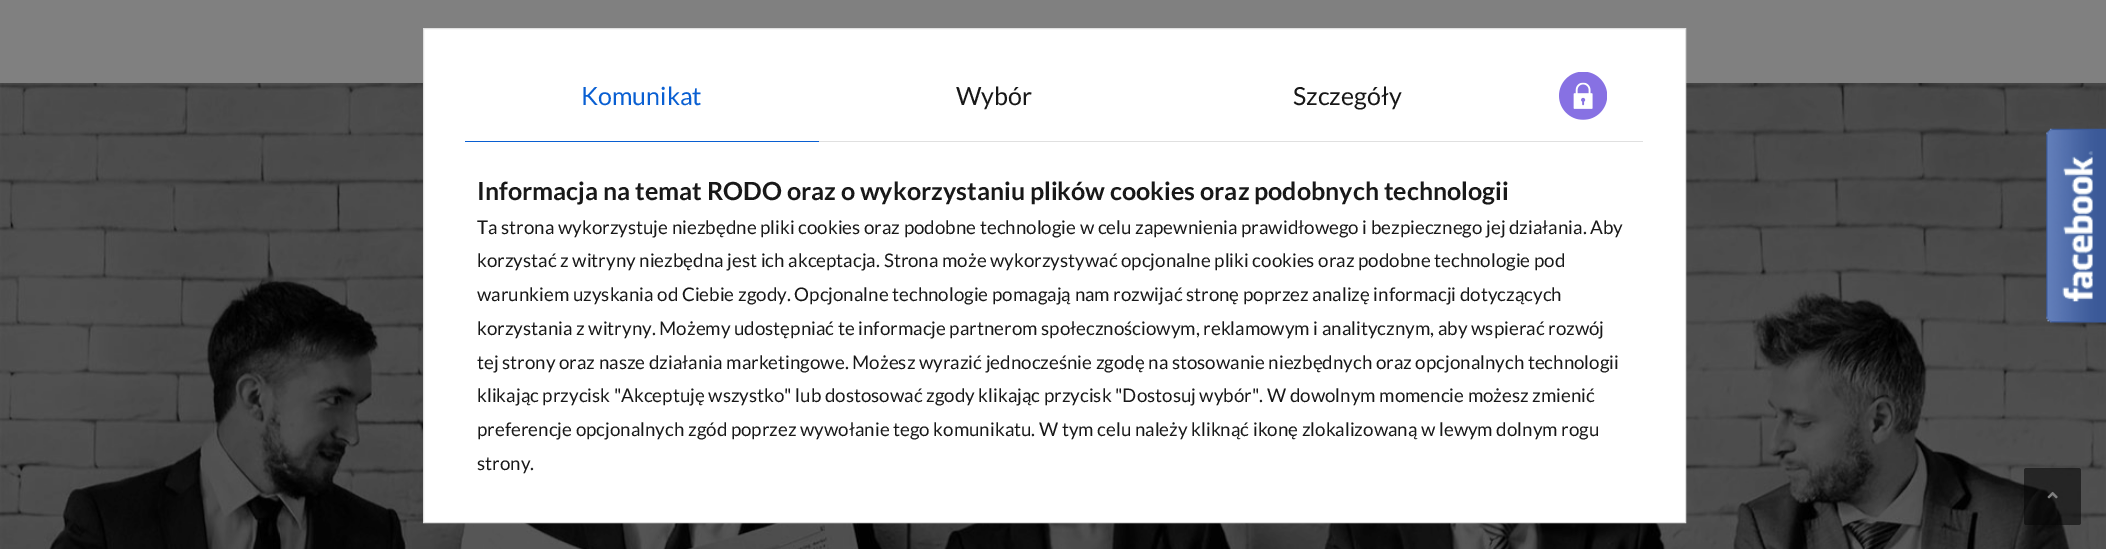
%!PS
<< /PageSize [2106 549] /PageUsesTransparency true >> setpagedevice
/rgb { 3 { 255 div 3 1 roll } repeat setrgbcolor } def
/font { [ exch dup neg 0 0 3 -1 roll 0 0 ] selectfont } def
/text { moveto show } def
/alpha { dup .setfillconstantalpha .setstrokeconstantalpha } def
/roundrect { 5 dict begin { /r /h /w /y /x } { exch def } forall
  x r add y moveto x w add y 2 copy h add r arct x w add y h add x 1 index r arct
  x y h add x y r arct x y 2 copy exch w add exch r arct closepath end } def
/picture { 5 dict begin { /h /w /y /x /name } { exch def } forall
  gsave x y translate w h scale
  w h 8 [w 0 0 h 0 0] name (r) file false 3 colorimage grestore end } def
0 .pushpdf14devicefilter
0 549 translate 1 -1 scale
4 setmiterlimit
128 128 128 rgb
0 0 2106 549 rectfill
(img_01.rgb) 0 83 2106 466 picture
255 255 255 rgb
423.5 28.5 moveto 1262 0 rlineto 0 494 rlineto -1262 0 rlineto closepath gsave fill grestore
224 224 224 rgb
stroke
9 95 210 rgb
465 141 354 1 rectfill
224 224 224 rgb
819 141 824 1 rectfill
(img_02.rgb) 1559 72 48 48 picture
(img_03.rgb) 2046 128 60 195 picture
0.57 alpha
5 5 5 rgb
2024 468 57 57 2.5 roundrect fill
1 alpha
(img_04.rgb) 2047 491 11 8 picture
/Lato-Regular 25 font
9 95 210 rgb
(Komunikat) 581 105 text
24 24 24 rgb
(Wybór) 956 105 text
(Szczegóły) 1293 105 text
/Lato-Bold 25 font
(Informacja na temat RODO oraz o wykorzystaniu plików cookies oraz podobnych technologii) 477 200 text
/Lato-Regular 18.75 font
(Ta strona wykorzystuje niezbędne pliki cookies oraz podobne technologie w celu zapewnienia prawidłowego i bezpiecznego jej działania. Aby) 477 234 text
(korzystać z witryny niezbędna jest ich akceptacja. Strona może wykorzystywać opcjonalne pliki cookies oraz podobne technologie pod) 477 267 text
(warunkiem uzyskania od Ciebie zgody. Opcjonalne technologie pomagają nam rozwijać stronę poprzez analizę informacji dotyczących) 477 301 text
(korzystania z witryny. Możemy udostępniać te informacje partnerom społecznościowym, reklamowym i analitycznym, aby wspierać rozwój) 477 335 text
(tej strony oraz nasze działania marketingowe. Możesz wyrazić jednocześnie zgodę na stosowanie niezbędnych oraz opcjonalnych technologii) 477 369 text
(klikając przycisk "Akceptuję wszystko" lub dostosować zgody klikając przycisk "Dostosuj wybór". W dowolnym momencie możesz zmienić) 477 402 text
(preferencje opcjonalnych zgód poprzez wywołanie tego komunikatu. W tym celu należy kliknąć ikonę zlokalizowaną w lewym dolnym rogu) 477 436 text
(strony.) 477 470 text
.poppdf14devicefilter showpage
